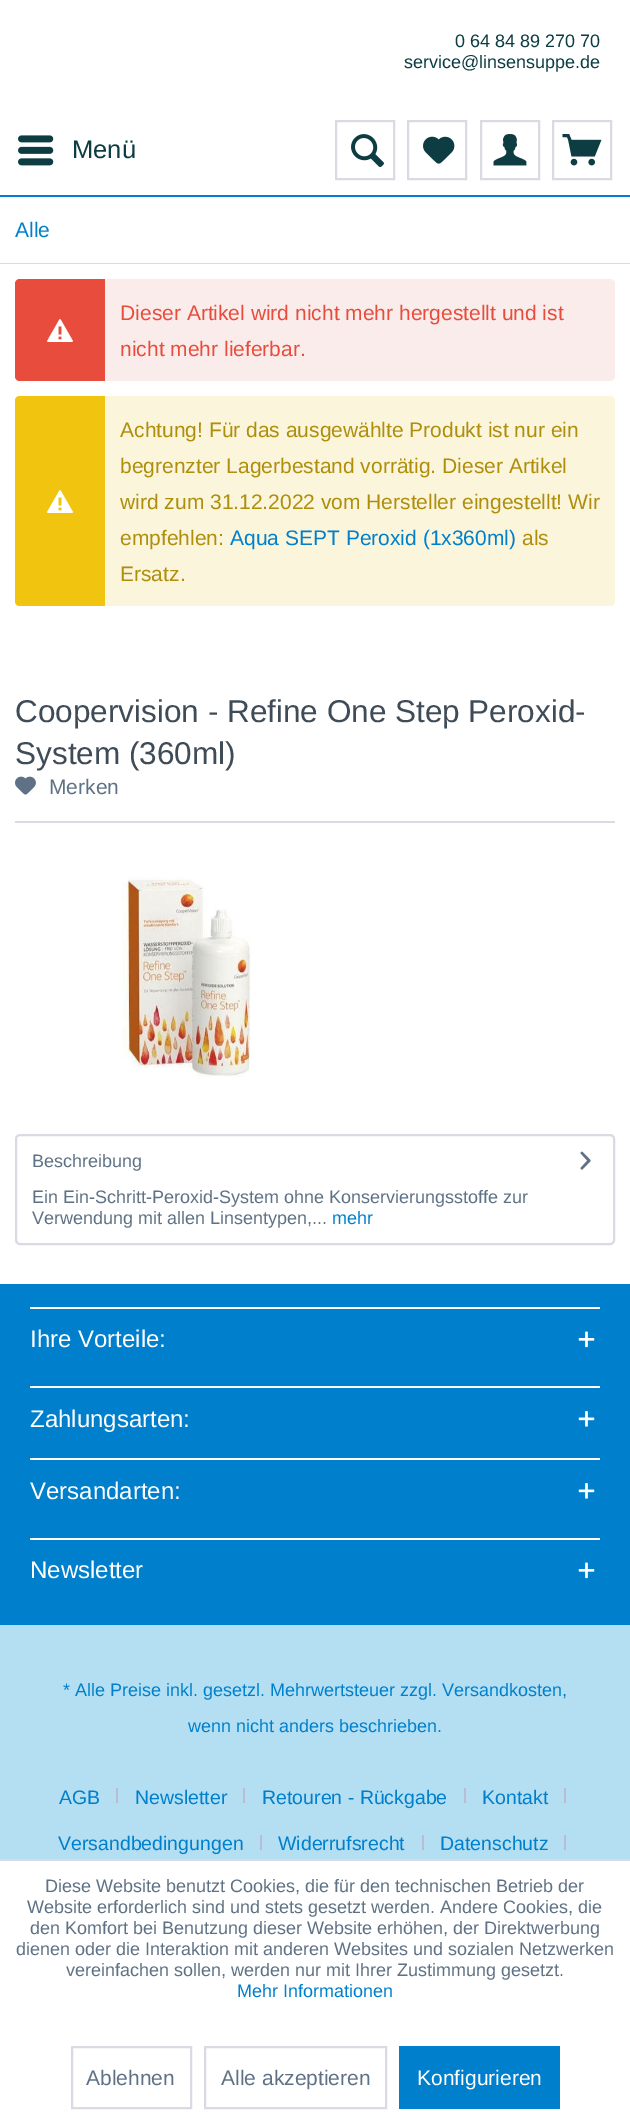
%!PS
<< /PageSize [630 2123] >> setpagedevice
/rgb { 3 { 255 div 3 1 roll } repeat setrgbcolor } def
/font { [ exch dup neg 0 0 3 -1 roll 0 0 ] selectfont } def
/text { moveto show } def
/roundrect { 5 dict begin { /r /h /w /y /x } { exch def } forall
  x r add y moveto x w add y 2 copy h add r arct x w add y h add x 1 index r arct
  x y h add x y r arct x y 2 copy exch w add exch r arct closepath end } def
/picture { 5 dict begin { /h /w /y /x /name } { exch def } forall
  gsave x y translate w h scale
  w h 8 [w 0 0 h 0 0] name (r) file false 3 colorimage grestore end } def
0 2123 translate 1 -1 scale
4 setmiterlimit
255 255 255 rgb
0 0 630 2123 rectfill
0 128 204 rgb
0 195 630 2 rectfill
(img_01.rgb) 18 135 36 31 picture
218 218 229 rgb
2 setlinewidth
336 121 58 58 rectstroke
(img_02.rgb) 351 134 33 33 picture
408 121 58 58 rectstroke
(img_03.rgb) 423 136 32 28 picture
481 121 58 58 rectstroke
(img_04.rgb) 493 134 34 32 picture
553 121 58 58 rectstroke
(img_05.rgb) 562 134 40 32 picture
0 263 630 1 rectfill
250 236 235 rgb
15 279 600 102 5 roundrect fill
231 76 60 rgb
20 279 moveto 85 0 rlineto 0 102 rlineto -85 0 rlineto -3 0 -5 -2 -5 -5 rcurveto 0 -92 rlineto 0 -3 2 -5 5 -5 rcurveto closepath fill
(img_06.rgb) 47 319 26 23 picture
251 245 219 rgb
15 396 600 210 5 roundrect fill
241 196 15 rgb
20 396 moveto 85 0 rlineto 0 210 rlineto -85 0 rlineto -3 0 -5 -2 -5 -5 rcurveto 0 -200 rlineto 0 -3 2 -5 5 -5 rcurveto closepath fill
(img_07.rgb) 47 490 26 23 picture
218 218 229 rgb
15 821 600 2 rectfill
(img_08.rgb) 15 776 21 19 picture
(img_09.rgb) 122 877 131 200 picture
16 1135 598 109 4 roundrect stroke
(img_10.rgb) 580 1151 11 19 picture
180 223 242 rgb
0 1625 630 234 rectfill
0 128 204 rgb
0 1284 630 341 rectfill
255 255 255 rgb
30 1307 570 2 rectfill
(img_11.rgb) 578 1331 17 17 picture
30 1386 570 2 rectfill
(img_12.rgb) 578 1411 17 16 picture
30 1458 570 2 rectfill
(img_12.rgb) 578 1483 17 16 picture
30 1538 570 2 rectfill
(img_11.rgb) 578 1562 17 17 picture
188 188 208 rgb
116 1788 2 15 rectfill
243 1788 2 15 rectfill
464 1788 2 15 rectfill
564 1788 2 15 rectfill
260 1835 2 15 rectfill
422 1835 2 15 rectfill
564 1835 2 15 rectfill
218 218 229 rgb
0 1859 630 2 rectfill
72 2047 119 61 rectstroke
205 2047 181 61 rectstroke
0 128 204 rgb
399 2046 161 63 rectfill
/LiberationSans-Regular 18 font
13 61 66 rgb
(0 64 84 89 270 70) 455 47 text
(service@linsensuppe.de) 404 68 text
/LiberationSans-Regular 25.5 font
(Menü) 72 158 text
/LiberationSans-Regular 21 font
0 128 204 rgb
(Alle) 15 237 text
231 76 60 rgb
(Dieser Artikel wird nicht mehr hergestellt und ist) 120 320 text
(nicht mehr lieferbar.) 120 356 text
174 142 10 rgb
(Achtung! Für das ausgewählte Produkt ist nur ein) 120 437 text
(begrenzter Lagerbestand vorrätig. Dieser Artikel) 120 473 text
(wird zum 31.12.2022 vom Hersteller eingestellt! Wir) 120 509 text
(empfehlen:) 120 545 text
0 128 204 rgb
(Aqua SEPT Peroxid \(1x360ml\)) 230 545 text
174 142 10 rgb
(als) 522 545 text
(Ersatz.) 120 581 text
/LiberationSans-Regular 31.5 font
63 76 88 rgb
(Coopervision - Refine One Step Peroxid-) 15 722 text
(System \(360ml\)) 15 764 text
/LiberationSans-Regular 21 font
95 114 133 rgb
(Merken) 49 794 text
/LiberationSans-Regular 18 font
(Beschreibung) 32 1167 text
(Ein Ein-Schritt-Peroxid-System ohne Konservierungsstoffe zur) 32 1203 text
(Verwendung mit allen Linsentypen,...) 32 1224 text
0 128 204 rgb
(mehr) 332 1224 text
/LiberationSans-Regular 24 font
255 255 255 rgb
(Ihre Vorteile:) 30 1347 text
(Zahlungsarten:) 30 1427 text
(Versandarten:) 30 1499 text
(Newsletter) 30 1578 text
/LiberationSans-Regular 18 font
0 128 204 rgb
(* Alle Preise inkl. gesetzl. Mehrwertsteuer zzgl. Versandkosten,) 63 1696 text
(wenn nicht anders beschrieben.) 188 1732 text
/LiberationSans-Regular 19.5 font
(AGB) 59 1804 text
(Newsletter) 135 1804 text
(Retouren - Rückgabe) 262 1804 text
(Kontakt) 482 1804 text
(Versandbedingungen) 58 1850 text
(Widerrufsrecht) 278 1850 text
(Datenschutz) 440 1850 text
/LiberationSans-Regular 18 font
95 114 133 rgb
(Diese Website benutzt Cookies, die für den technischen Betrieb der) 45 1892 text
(Website erforderlich sind und stets gesetzt werden. Andere Cookies, die) 27 1913 text
(den Komfort bei Benutzung dieser Website erhöhen, der Direktwerbung) 30 1934 text
(dienen oder die Interaktion mit anderen Websites und sozialen Netzwerken) 16 1955 text
(vereinfachen sollen, werden nur mit Ihrer Zustimmung gesetzt.) 66 1976 text
0 128 204 rgb
(Mehr Informationen) 237 1997 text
/LiberationSans-Regular 21 font
95 114 133 rgb
(Ablehnen) 86 2085 text
(Alle akzeptieren) 221 2085 text
255 255 255 rgb
(Konfigurieren) 417 2085 text
showpage
